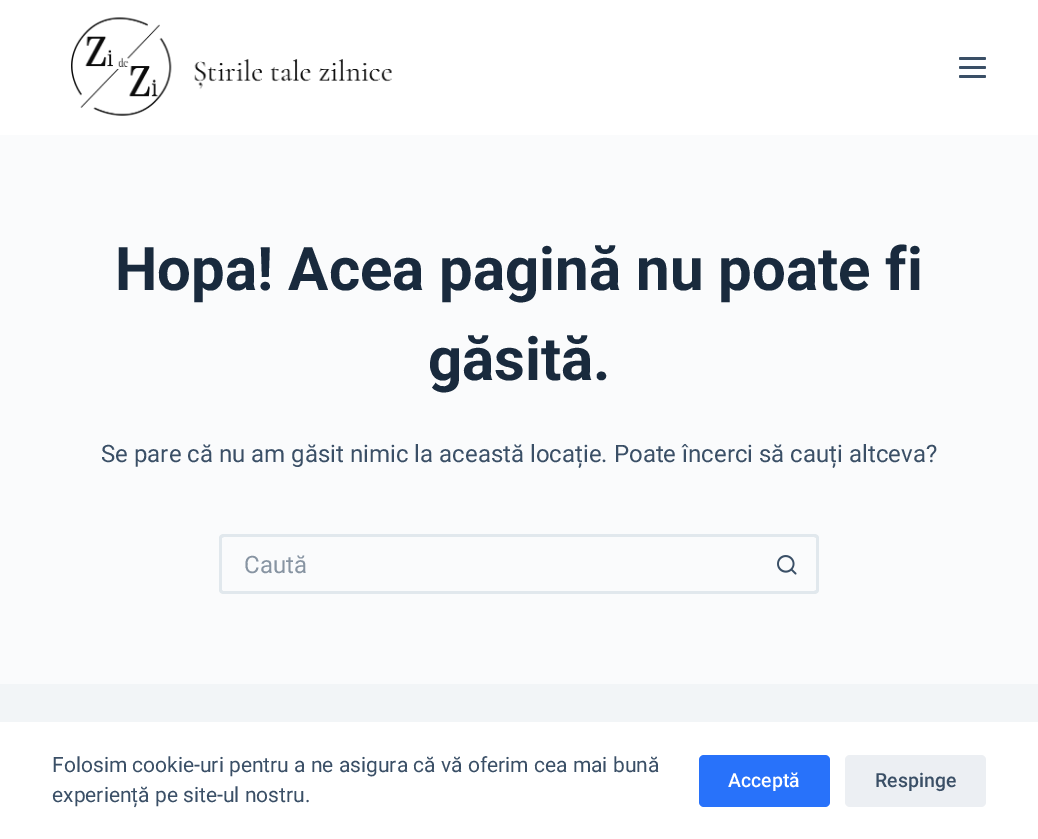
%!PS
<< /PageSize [1038 839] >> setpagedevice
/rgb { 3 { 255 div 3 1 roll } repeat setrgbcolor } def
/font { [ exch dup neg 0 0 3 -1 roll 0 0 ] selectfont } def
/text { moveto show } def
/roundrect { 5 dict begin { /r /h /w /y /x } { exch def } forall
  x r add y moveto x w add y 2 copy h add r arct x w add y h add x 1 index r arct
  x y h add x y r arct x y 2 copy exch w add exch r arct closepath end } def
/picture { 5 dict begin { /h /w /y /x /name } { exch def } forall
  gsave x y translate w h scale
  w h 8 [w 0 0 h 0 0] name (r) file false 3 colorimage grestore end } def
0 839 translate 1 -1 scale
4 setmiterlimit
250 251 252 rgb
0 0 1038 839 rectfill
255 255 255 rgb
0 0 1038 135 rectfill
(img_01.rgb) 71 17 321 99 picture
58 79 102 rgb
959 57 27 3 1.5 roundrect fill
959 66 27 3 1.5 roundrect fill
959 75 27 3 1.5 roundrect fill
225 232 237 rgb
224 534 moveto 535 0 rlineto 0 60 rlineto -535 0 rlineto -3 0 -5 -2 -5 -4 rcurveto 0 -52 rlineto 0 -2 2 -4 5 -4 rcurveto closepath 224 537 moveto 535 0 rlineto 0 54 rlineto -536 0 rlineto -1 -1 rlineto 0 -52 rlineto 0 0 1 -1 2 -1 rcurveto closepath eofill
759 534 moveto 55 0 rlineto 3 0 5 2 5 4 rcurveto 0 52 rlineto 0 2 -2 4 -5 4 rcurveto -55 0 rlineto closepath 759 537 moveto 55 0 rlineto 1 0 2 1 2 1 rcurveto 0 52 rlineto 0 0 -1 1 -2 1 rcurveto -55 0 rlineto closepath eofill
(img_02.rgb) 777 555 20 20 picture
242 245 247 rgb
0 684 1038 38 rectfill
255 255 255 rgb
0 722 1038 117 rectfill
40 114 250 rgb
699 755 131 52 5 roundrect fill
236 239 243 rgb
845 755 141 52 5 roundrect fill
/Roboto-Bold 60 font
25 42 61 rgb
(Hopa! Acea pagină nu poate fi) 115 290 text
(găsită.) 428 380 text
/Roboto-Regular 24 font
58 79 102 rgb
(Se pare că nu am găsit nimic la această locație. Poate încerci să cauți altceva?) 101 462 text
135 148 162 rgb
(Caută) 244 573 text
/Roboto-Regular 21 font
58 79 102 rgb
(Folosim cookie-uri pentru a ne asigura că vă oferim cea mai bună) 52 772 text
(experiență pe site-ul nostru.) 52 802 text
/Roboto-Medium 19.5 font
255 255 255 rgb
(Acceptă) 728 787 text
58 79 102 rgb
(Respinge) 875 787 text
showpage
